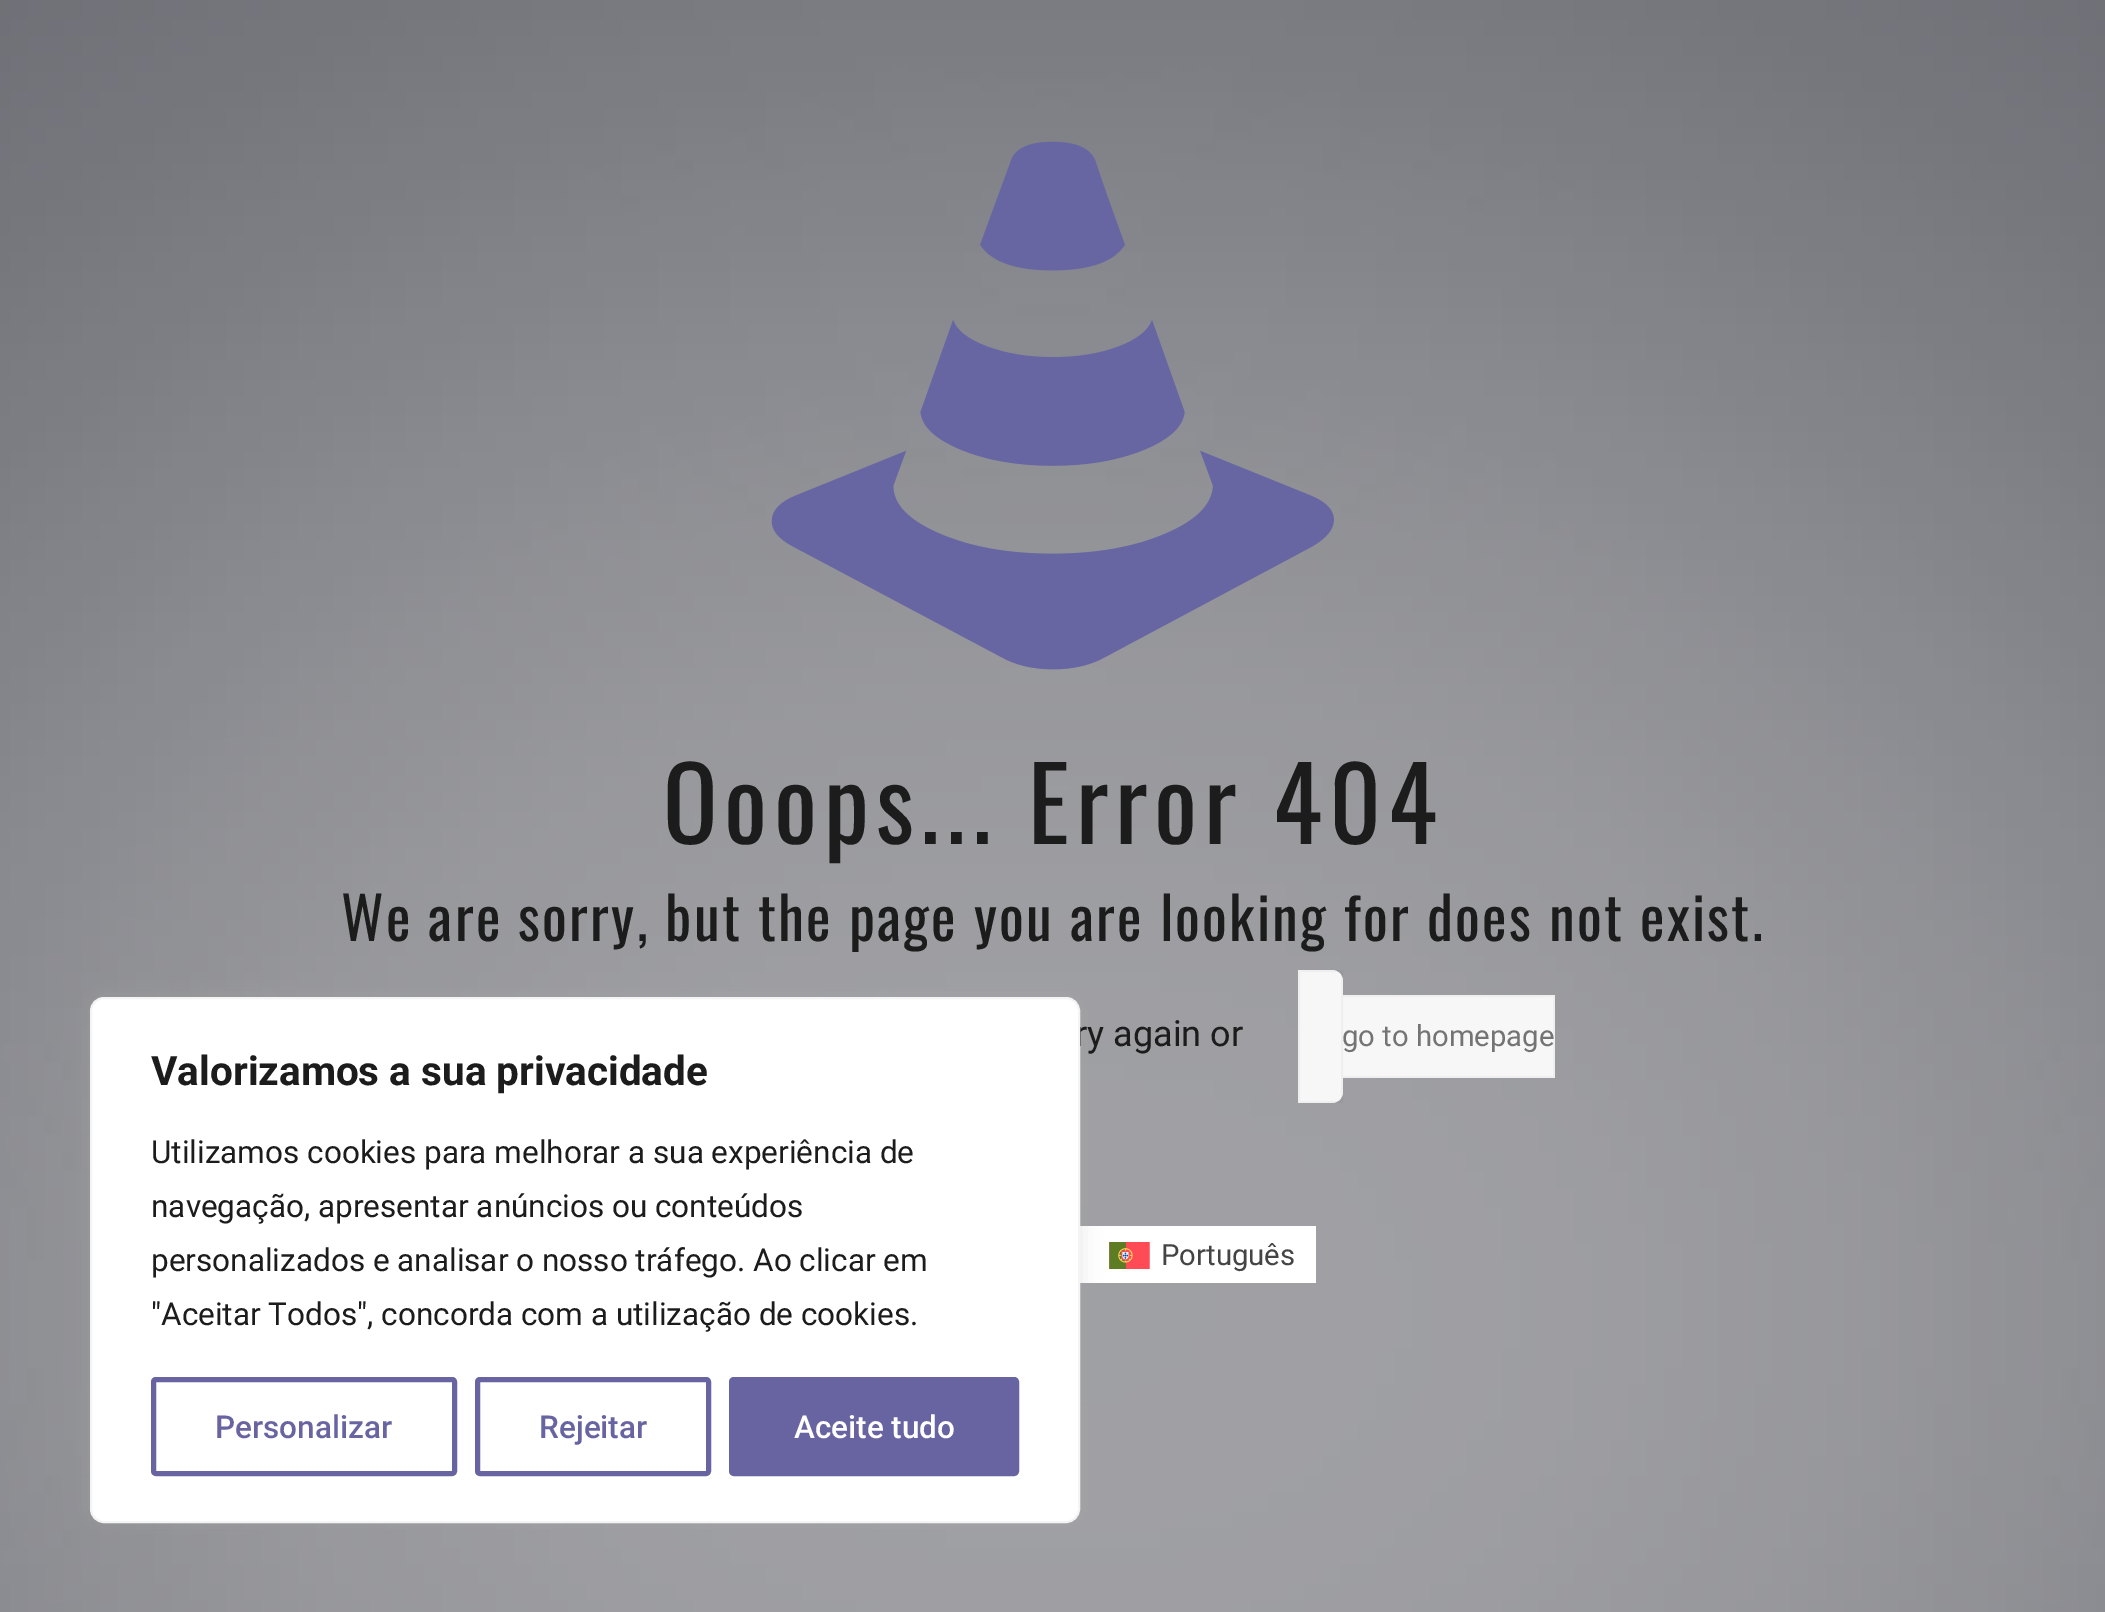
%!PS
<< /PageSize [2105 1612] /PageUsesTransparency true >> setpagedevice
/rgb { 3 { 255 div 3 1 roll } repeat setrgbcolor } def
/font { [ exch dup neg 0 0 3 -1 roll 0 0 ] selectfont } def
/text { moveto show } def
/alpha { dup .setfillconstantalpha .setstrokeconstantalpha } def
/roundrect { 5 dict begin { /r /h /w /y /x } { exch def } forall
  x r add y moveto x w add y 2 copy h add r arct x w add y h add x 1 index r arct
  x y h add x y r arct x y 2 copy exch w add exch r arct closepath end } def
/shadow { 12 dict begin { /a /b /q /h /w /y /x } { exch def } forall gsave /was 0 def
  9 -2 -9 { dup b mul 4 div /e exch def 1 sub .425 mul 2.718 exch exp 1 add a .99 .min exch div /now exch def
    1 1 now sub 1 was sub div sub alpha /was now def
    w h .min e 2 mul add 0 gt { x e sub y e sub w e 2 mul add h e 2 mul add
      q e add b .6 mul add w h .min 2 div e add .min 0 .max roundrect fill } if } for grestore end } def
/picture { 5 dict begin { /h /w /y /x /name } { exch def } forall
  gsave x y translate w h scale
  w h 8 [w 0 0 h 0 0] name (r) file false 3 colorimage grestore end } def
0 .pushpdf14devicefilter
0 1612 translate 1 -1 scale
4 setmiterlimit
255 255 255 rgb
0 0 2105 1612 rectfill
(img_01.rgb) 0 0 2105 1612 picture
(img_02.rgb) 771 141 563 529 picture
247 247 247 rgb
1343 995 212 83 rectfill
0.03 alpha
0 0 0 rgb
2 setlinewidth
1299 996 255 81 rectstroke
1 alpha
247 247 247 rgb
1298 970 moveto 34 0 rlineto 6 0 11 5 11 11 rcurveto 0 111 rlineto 0 6 -5 11 -11 11 rcurveto -34 0 rlineto closepath fill
0.03 alpha
0 0 0 rgb
1299 971 43 131 rectstroke
1 alpha
255 255 255 rgb
1080 1226 236 57 rectfill
(img_03.rgb) 1109 1242 41 27 picture
172 171 171 rgb
90 995 990 526 14 11 0.3 shadow
/Oswald-Regular 101.25 font
28 28 28 rgb
663 844 moveto 6.75 0 (Ooops... Error 404) ashow
/Oswald-Regular 58.5 font
341 941 moveto 2.25 0 (We are sorry, but the page you are looking for does not exist.) ashow
/Roboto-Regular 36 font
(ry again or) 1075 1046 text
/Roboto-Regular 29.25 font
116 116 116 rgb
(go to homepage) 1342 1046 text
255 255 255 rgb
91 998 988 524 13 roundrect gsave fill grestore
244 244 244 rgb
stroke
/Roboto-Bold 40.5 font
28 28 28 rgb
(Valorizamos a sua privacidade) 151 1085 text
/Roboto-Regular 31.5 font
(Utilizamos cookies para melhorar a sua experiência de) 151 1163 text
(navegação, apresentar anúncios ou conteúdos) 151 1217 text
(personalizados e analisar o nosso tráfego. Ao clicar em) 151 1271 text
("Aceitar Todos", concorda com a utilização de cookies.) 151 1325 text
104 100 161 rgb
5 setlinewidth
153.5 1379.5 301 94 2.5 roundrect stroke
/Roboto-Medium 31.5 font
(Personalizar) 215 1438 text
477.5 1379.5 231 94 2.5 roundrect stroke
(Rejeitar) 539 1438 text
731.5 1379.5 285 94 2.5 roundrect gsave fill grestore
stroke
255 255 255 rgb
(Aceite tudo) 794 1438 text
/Roboto-Regular 29.25 font
68 68 68 rgb
(Português) 1161 1265 text
.poppdf14devicefilter showpage
